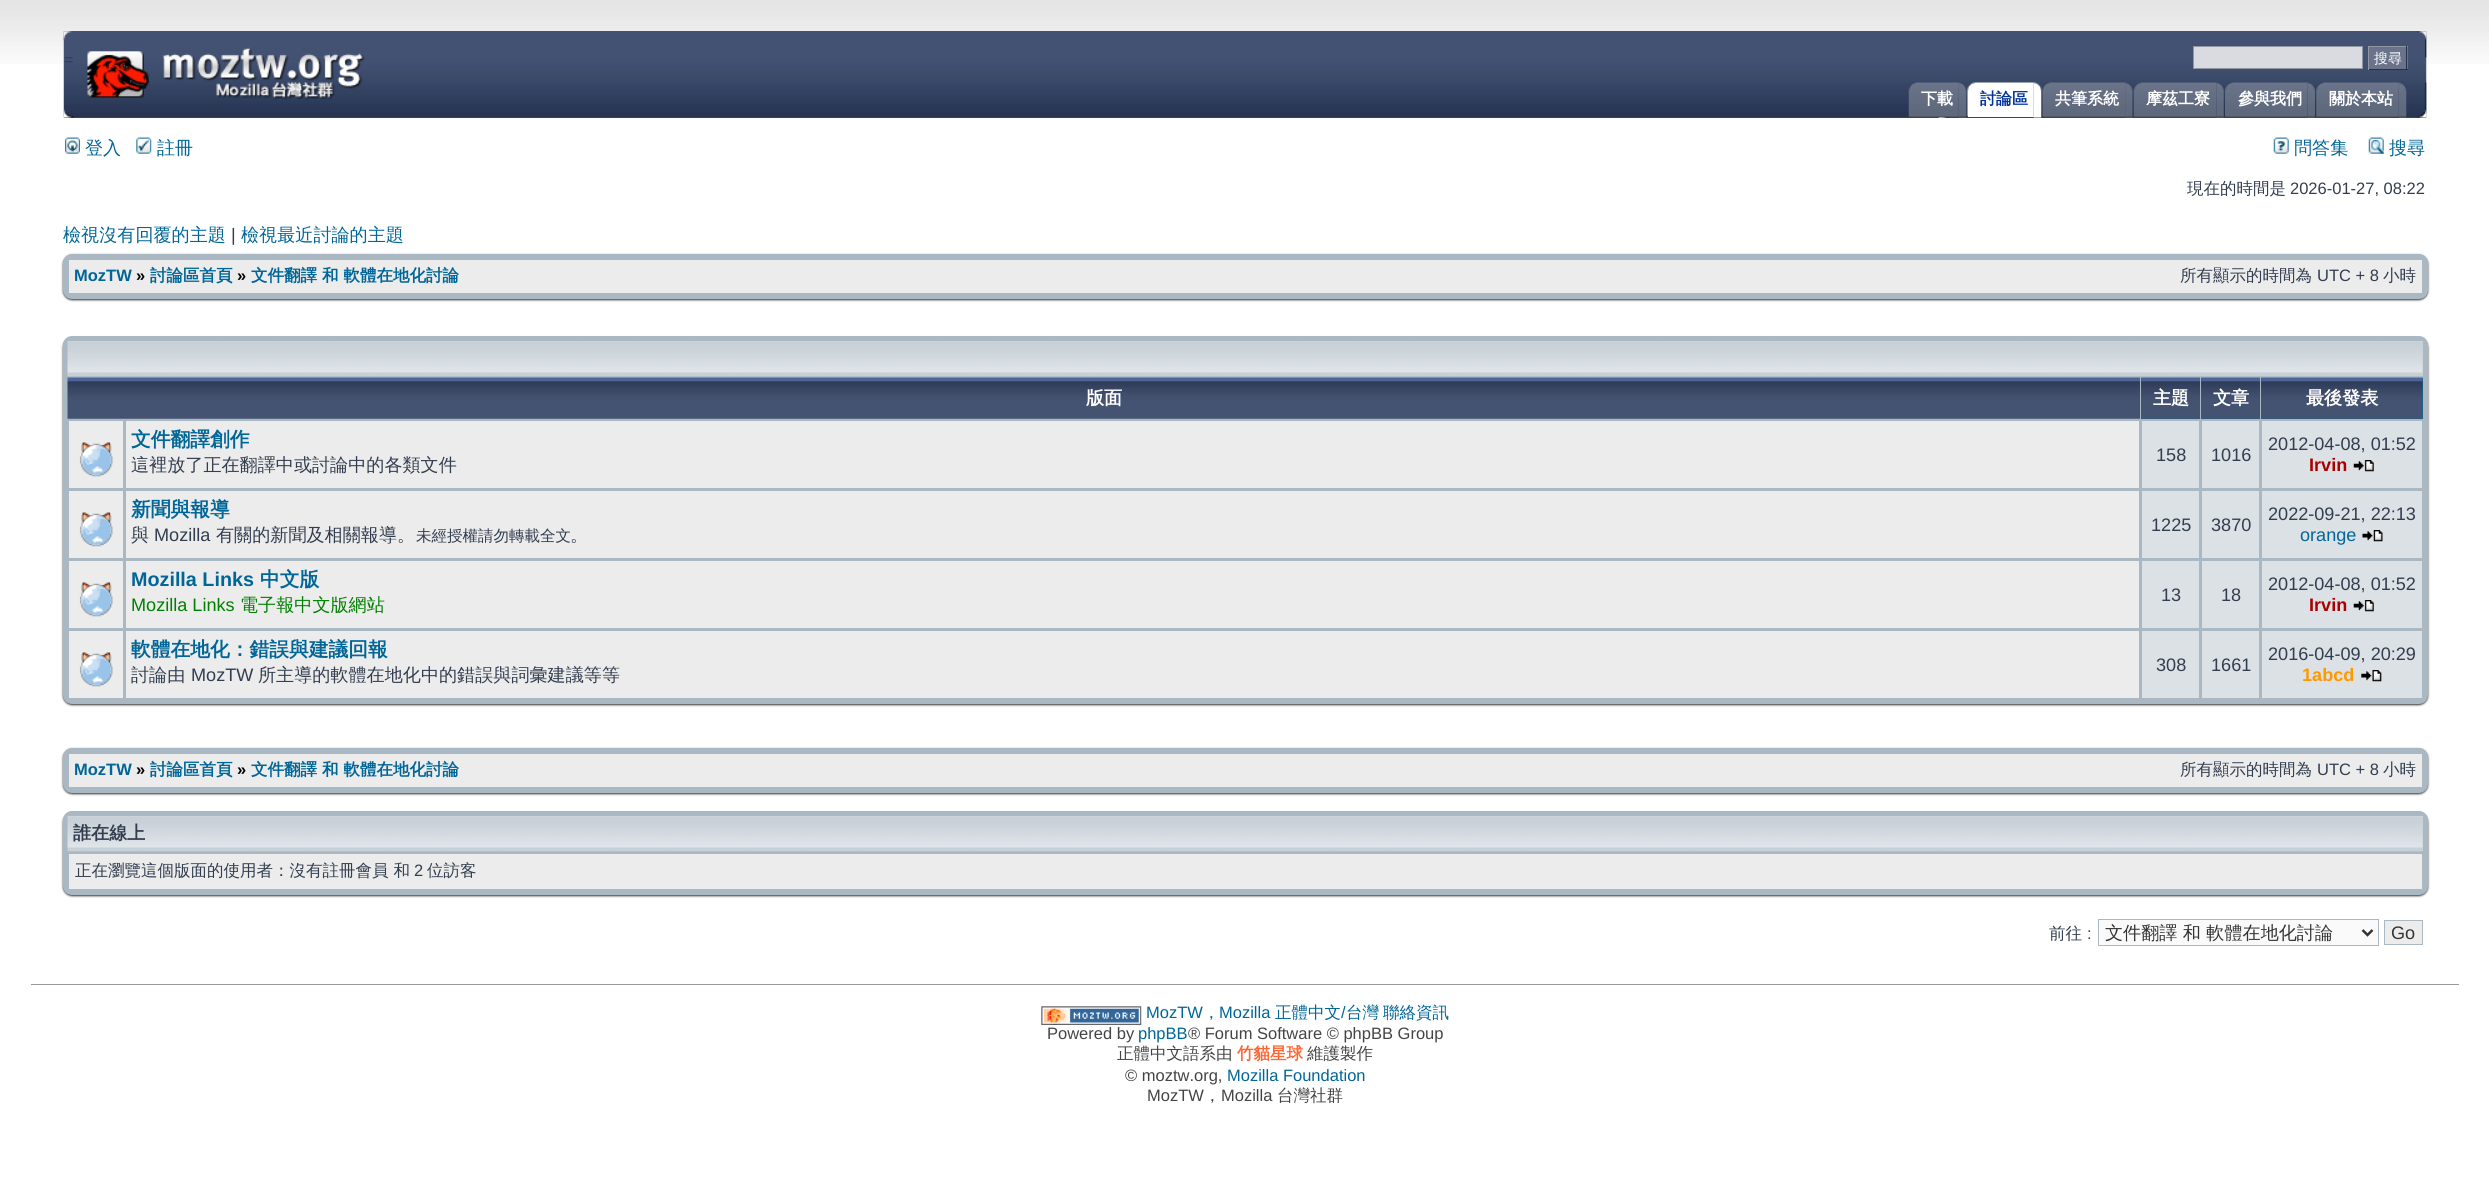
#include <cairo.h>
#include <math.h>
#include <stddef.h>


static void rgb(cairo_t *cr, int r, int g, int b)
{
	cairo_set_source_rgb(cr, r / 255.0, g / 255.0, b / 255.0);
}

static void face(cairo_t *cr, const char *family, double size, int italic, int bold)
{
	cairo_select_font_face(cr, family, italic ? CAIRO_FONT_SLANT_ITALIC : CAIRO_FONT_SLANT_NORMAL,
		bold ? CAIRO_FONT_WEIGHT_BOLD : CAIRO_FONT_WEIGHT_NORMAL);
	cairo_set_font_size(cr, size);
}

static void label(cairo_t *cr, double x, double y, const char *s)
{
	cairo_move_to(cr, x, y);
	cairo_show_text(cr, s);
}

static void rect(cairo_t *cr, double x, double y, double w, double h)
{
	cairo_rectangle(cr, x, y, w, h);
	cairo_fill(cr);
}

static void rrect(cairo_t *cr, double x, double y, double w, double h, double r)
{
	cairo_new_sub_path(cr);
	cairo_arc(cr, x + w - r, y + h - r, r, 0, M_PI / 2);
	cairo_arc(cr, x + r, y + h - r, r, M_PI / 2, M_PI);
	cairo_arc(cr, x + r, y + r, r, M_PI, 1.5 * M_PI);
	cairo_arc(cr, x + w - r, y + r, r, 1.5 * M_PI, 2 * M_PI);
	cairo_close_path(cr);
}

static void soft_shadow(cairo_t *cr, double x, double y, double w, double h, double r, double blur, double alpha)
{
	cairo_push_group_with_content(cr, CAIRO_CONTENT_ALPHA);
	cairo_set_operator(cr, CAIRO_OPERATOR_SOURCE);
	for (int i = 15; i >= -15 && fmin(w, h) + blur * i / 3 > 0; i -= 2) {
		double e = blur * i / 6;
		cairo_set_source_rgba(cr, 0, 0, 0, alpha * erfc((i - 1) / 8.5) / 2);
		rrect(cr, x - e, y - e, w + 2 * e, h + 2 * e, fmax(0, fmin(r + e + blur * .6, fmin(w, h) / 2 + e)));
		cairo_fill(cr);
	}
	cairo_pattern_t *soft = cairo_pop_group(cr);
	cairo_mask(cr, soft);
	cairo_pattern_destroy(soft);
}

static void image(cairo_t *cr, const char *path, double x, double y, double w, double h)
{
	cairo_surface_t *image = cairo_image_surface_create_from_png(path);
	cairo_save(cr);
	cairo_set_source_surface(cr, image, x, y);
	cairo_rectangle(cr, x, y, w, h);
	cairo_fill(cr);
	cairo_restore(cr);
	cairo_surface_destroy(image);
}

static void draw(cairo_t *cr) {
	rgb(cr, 255, 255, 255);
	cairo_paint(cr);
	image(cr, "image0.png", 0, 0, 2489, 64);
	rgb(cr, 69, 83, 114);
	rect(cr, 64, 31, 2362, 87);
	image(cr, "image1.png", 63, 31, 2364, 87);
	image(cr, "image2.png", 63, 31, 9, 9);
	image(cr, "image3.png", 87, 47, 278, 53);
	image(cr, "image4.png", 2417, 31, 10, 27);
	rgb(cr, 217, 219, 225);
	cairo_rectangle(cr, 2193.5, 46.5, 169, 22);
	cairo_fill_preserve(cr);
	rgb(cr, 144, 151, 162);
	cairo_set_line_width(cr, 1);
	cairo_stroke(cr);
	rgb(cr, 106, 115, 137);
	rect(cr, 2369, 47, 39, 22);
	rgb(cr, 144, 151, 162);
	rect(cr, 2368, 46, 40, 1);
	rgb(cr, 40, 48, 67);
	rect(cr, 2406, 46, 1, 24);
	rect(cr, 2368, 69, 40, 1);
	rgb(cr, 144, 151, 162);
	rect(cr, 2368, 46, 1, 24);
	face(cr, "WenQuanYi Zen Hei Medium", 14, 0, 0);
	rgb(cr, 255, 255, 255);
	label(cr, 2374, 63, "搜尋");
	face(cr, "Liberation Sans", 16, 0, 0);
	rgb(cr, 50, 61, 79);
	label(cr, 64, 65, "=");
	image(cr, "image5.png", 2417, 82, 10, 36);
	image(cr, "image6.png", 1958, 82, 9, 36);
	rgb(cr, 81, 83, 88);
	rect(cr, 1909, 116, 57, 1);
	image(cr, "image7.png", 1908, 82, 51, 35);
	face(cr, "WenQuanYi Zen Hei", 16, 0, 1);
	rgb(cr, 255, 255, 255);
	label(cr, 1921, 104, "下載");
	image(cr, "image8.png", 2033, 82, 9, 36);
	rect(cr, 1968, 116, 73, 1);
	image(cr, "image9.png", 1967, 82, 67, 35);
	rgb(cr, 0, 51, 153);
	label(cr, 1980, 104, "討論區");
	image(cr, "image10.png", 2125, 82, 8, 36);
	rgb(cr, 81, 83, 88);
	rect(cr, 2043, 116, 90, 1);
	image(cr, "image11.png", 2042, 82, 83, 35);
	rgb(cr, 255, 255, 255);
	label(cr, 2055, 104, "共筆系統");
	image(cr, "image12.png", 2216, 82, 8, 36);
	rgb(cr, 81, 83, 88);
	rect(cr, 2134, 116, 90, 1);
	image(cr, "image13.png", 2133, 82, 84, 35);
	rgb(cr, 255, 255, 255);
	label(cr, 2146, 104, "摩茲工寮");
	image(cr, "image14.png", 2307, 82, 8, 36);
	rgb(cr, 81, 83, 88);
	rect(cr, 2225, 116, 90, 1);
	image(cr, "image15.png", 2225, 82, 83, 35);
	rgb(cr, 255, 255, 255);
	label(cr, 2238, 104, "參與我們");
	image(cr, "image6.png", 2398, 82, 9, 36);
	rgb(cr, 81, 83, 88);
	rect(cr, 2316, 116, 90, 1);
	image(cr, "image16.png", 2316, 82, 83, 35);
	rgb(cr, 255, 255, 255);
	label(cr, 2329, 104, "關於本站");
	image(cr, "image17.png", 65, 137, 15, 17);
	face(cr, "WenQuanYi Zen Hei Medium", 18.1, 0, 0);
	rgb(cr, 0, 101, 151);
	label(cr, 85, 154, "登入");
	image(cr, "image18.png", 136, 137, 16, 17);
	label(cr, 157, 154, "註冊");
	image(cr, "image19.png", 2273, 137, 16, 17);
	label(cr, 2294, 154, "問答集");
	image(cr, "image20.png", 2368, 137, 16, 17);
	label(cr, 2389, 154, "搜尋");
	face(cr, "WenQuanYi Zen Hei Medium", 16.5, 0, 0);
	rgb(cr, 50, 61, 79);
	label(cr, 2187, 194, "現在的時間是");
	face(cr, "Liberation Sans", 16.5, 0, 0);
	label(cr, 2290, 194, "2026-01-27, 08:22");
	face(cr, "WenQuanYi Zen Hei Medium", 18.1, 0, 0);
	rgb(cr, 0, 101, 151);
	label(cr, 63, 241, "檢視沒有回覆的主題");
	face(cr, "Liberation Sans", 18.1, 0, 0);
	rgb(cr, 50, 61, 79);
	label(cr, 231, 241, "|");
	face(cr, "WenQuanYi Zen Hei Medium", 18.1, 0, 0);
	rgb(cr, 0, 101, 151);
	label(cr, 241, 241, "檢視最近討論的主題");
	rgb(cr, 51, 51, 51);
	soft_shadow(cr, 63, 255, 2365, 45, 9, 1, 1);
	rgb(cr, 169, 184, 194);
	rrect(cr, 63, 254, 2365, 45, 9);
	cairo_fill(cr);
	rgb(cr, 236, 236, 236);
	rect(cr, 69, 260, 2353, 33);
	face(cr, "Liberation Sans", 16.5, 0, 1);
	rgb(cr, 0, 101, 151);
	label(cr, 74, 281, "MozTW");
	rgb(cr, 0, 0, 0);
	label(cr, 136, 281, "»");
	face(cr, "WenQuanYi Zen Hei", 16.5, 0, 1);
	rgb(cr, 0, 101, 151);
	label(cr, 150, 281, "討論區首頁");
	face(cr, "Liberation Sans", 16.5, 0, 1);
	rgb(cr, 0, 0, 0);
	label(cr, 237, 281, "»");
	face(cr, "WenQuanYi Zen Hei", 16.5, 0, 1);
	rgb(cr, 0, 101, 151);
	label(cr, 251, 281, "文件翻譯 和 軟體在地化討論");
	face(cr, "WenQuanYi Zen Hei Medium", 16.5, 0, 0);
	rgb(cr, 50, 61, 79);
	label(cr, 2180, 281, "所有顯示的時間為");
	face(cr, "Liberation Sans", 16.5, 0, 0);
	label(cr, 2317, 281, "UTC + 8");
	face(cr, "WenQuanYi Zen Hei Medium", 16.5, 0, 0);
	label(cr, 2383, 281, "小時");
	rgb(cr, 51, 51, 51);
	soft_shadow(cr, 63, 338, 2365, 367, 9, 1, 1);
	rgb(cr, 169, 184, 194);
	rrect(cr, 63, 336, 2365, 368, 9);
	cairo_fill(cr);
	rgb(cr, 199, 208, 215);
	rect(cr, 68, 341, 2355, 35);
	image(cr, "image21.png", 67, 341, 2356, 36);
	image(cr, "image22.png", 67, 377, 2073, 42);
	face(cr, "WenQuanYi Zen Hei", 18.1, 0, 1);
	rgb(cr, 255, 255, 255);
	label(cr, 1086, 404, "版面");
	rgb(cr, 0, 102, 153);
	rect(cr, 2141, 378, 59, 41);
	image(cr, "image23.png", 2141, 377, 59, 42);
	rgb(cr, 255, 255, 255);
	label(cr, 2153, 404, "主題");
	rgb(cr, 0, 102, 153);
	rect(cr, 2201, 378, 59, 41);
	image(cr, "image24.png", 2201, 377, 59, 42);
	rgb(cr, 255, 255, 255);
	label(cr, 2213, 404, "文章");
	rgb(cr, 0, 102, 153);
	rect(cr, 2261, 378, 162, 41);
	image(cr, "image25.png", 2261, 377, 162, 42);
	rgb(cr, 255, 255, 255);
	label(cr, 2306, 404, "最後發表");
	rgb(cr, 236, 236, 236);
	rect(cr, 69, 421, 54, 67);
	image(cr, "image26.png", 79, 442, 34, 35);
	rect(cr, 126, 421, 2013, 67);
	face(cr, "WenQuanYi Zen Hei", 19.75, 0, 1);
	rgb(cr, 0, 101, 151);
	label(cr, 131, 446, "文件翻譯創作");
	face(cr, "WenQuanYi Zen Hei Medium", 18.1, 0, 0);
	rgb(cr, 50, 61, 79);
	label(cr, 131, 471, "這裡放了正在翻譯中或討論中的各類文件");
	rgb(cr, 220, 225, 229);
	rect(cr, 2142, 421, 57, 67);
	face(cr, "Liberation Sans", 18.1, 0, 0);
	rgb(cr, 50, 61, 79);
	label(cr, 2156, 461, "158");
	rgb(cr, 220, 225, 229);
	rect(cr, 2202, 421, 57, 67);
	rgb(cr, 50, 61, 79);
	label(cr, 2211, 461, "1016");
	rgb(cr, 220, 225, 229);
	rect(cr, 2262, 421, 160, 67);
	rgb(cr, 50, 61, 79);
	label(cr, 2268, 450, "2012-04-08, 01:52");
	face(cr, "Liberation Sans", 18.1, 0, 1);
	rgb(cr, 170, 0, 0);
	label(cr, 2309, 471, "Irvin");
	image(cr, "image27.png", 2353, 460, 21, 12);
	rgb(cr, 236, 236, 236);
	rect(cr, 69, 491, 54, 67);
	image(cr, "image26.png", 79, 512, 34, 35);
	rect(cr, 126, 491, 2013, 67);
	face(cr, "WenQuanYi Zen Hei", 19.75, 0, 1);
	rgb(cr, 0, 101, 151);
	label(cr, 131, 516, "新聞與報導");
	face(cr, "WenQuanYi Zen Hei Medium", 18.1, 0, 0);
	rgb(cr, 50, 61, 79);
	label(cr, 131, 541, "與");
	face(cr, "Liberation Sans", 18.1, 0, 0);
	label(cr, 154, 541, "Mozilla");
	face(cr, "WenQuanYi Zen Hei Medium", 18.1, 0, 0);
	label(cr, 216, 541, "有關的新聞及相關報導。");
	face(cr, "WenQuanYi Zen Hei Medium", 15.5, 0, 0);
	label(cr, 416, 541, "未經授權請勿轉載全文");
	face(cr, "WenQuanYi Zen Hei Medium", 18.1, 0, 0);
	label(cr, 570, 541, "。");
	rgb(cr, 220, 225, 229);
	rect(cr, 2142, 491, 57, 67);
	face(cr, "Liberation Sans", 18.1, 0, 0);
	rgb(cr, 50, 61, 79);
	label(cr, 2151, 531, "1225");
	rgb(cr, 220, 225, 229);
	rect(cr, 2202, 491, 57, 67);
	rgb(cr, 50, 61, 79);
	label(cr, 2211, 531, "3870");
	rgb(cr, 220, 225, 229);
	rect(cr, 2262, 491, 160, 67);
	rgb(cr, 50, 61, 79);
	label(cr, 2268, 520, "2022-09-21, 22:13");
	rgb(cr, 0, 101, 151);
	label(cr, 2300, 541, "orange");
	image(cr, "image28.png", 2362, 530, 21, 12);
	rgb(cr, 236, 236, 236);
	rect(cr, 69, 561, 54, 67);
	image(cr, "image29.png", 79, 582, 34, 35);
	rect(cr, 126, 561, 2013, 67);
	face(cr, "Liberation Sans", 19.75, 0, 1);
	rgb(cr, 0, 101, 151);
	label(cr, 131, 586, "Mozilla Links");
	face(cr, "WenQuanYi Zen Hei", 19.75, 0, 1);
	label(cr, 260, 586, "中文版");
	face(cr, "Liberation Sans", 18.1, 0, 0);
	rgb(cr, 0, 128, 0);
	label(cr, 131, 611, "Mozilla Links");
	face(cr, "WenQuanYi Zen Hei Medium", 18.1, 0, 0);
	label(cr, 240, 611, "電子報中文版網站");
	rgb(cr, 220, 225, 229);
	rect(cr, 2142, 561, 57, 67);
	face(cr, "Liberation Sans", 18.1, 0, 0);
	rgb(cr, 50, 61, 79);
	label(cr, 2161, 601, "13");
	rgb(cr, 220, 225, 229);
	rect(cr, 2202, 561, 57, 67);
	rgb(cr, 50, 61, 79);
	label(cr, 2221, 601, "18");
	rgb(cr, 220, 225, 229);
	rect(cr, 2262, 561, 160, 67);
	rgb(cr, 50, 61, 79);
	label(cr, 2268, 590, "2012-04-08, 01:52");
	face(cr, "Liberation Sans", 18.1, 0, 1);
	rgb(cr, 170, 0, 0);
	label(cr, 2309, 611, "Irvin");
	image(cr, "image27.png", 2353, 600, 21, 12);
	rgb(cr, 236, 236, 236);
	rect(cr, 69, 631, 54, 67);
	image(cr, "image26.png", 79, 652, 34, 35);
	rect(cr, 126, 631, 2013, 67);
	face(cr, "WenQuanYi Zen Hei", 19.75, 0, 1);
	rgb(cr, 0, 101, 151);
	label(cr, 131, 656, "軟體在地化：錯誤與建議回報");
	face(cr, "WenQuanYi Zen Hei Medium", 18.1, 0, 0);
	rgb(cr, 50, 61, 79);
	label(cr, 131, 681, "討論由");
	face(cr, "Liberation Sans", 18.1, 0, 0);
	label(cr, 191, 681, "MozTW");
	face(cr, "WenQuanYi Zen Hei Medium", 18.1, 0, 0);
	label(cr, 258, 681, "所主導的軟體在地化中的錯誤與詞彙建議等等");
	rgb(cr, 220, 225, 229);
	rect(cr, 2142, 631, 57, 67);
	face(cr, "Liberation Sans", 18.1, 0, 0);
	rgb(cr, 50, 61, 79);
	label(cr, 2156, 671, "308");
	rgb(cr, 220, 225, 229);
	rect(cr, 2202, 631, 57, 67);
	rgb(cr, 50, 61, 79);
	label(cr, 2211, 671, "1661");
	rgb(cr, 220, 225, 229);
	rect(cr, 2262, 631, 160, 67);
	rgb(cr, 50, 61, 79);
	label(cr, 2268, 660, "2016-04-09, 20:29");
	face(cr, "Liberation Sans", 18.1, 0, 1);
	rgb(cr, 255, 153, 0);
	label(cr, 2302, 681, "1abcd");
	image(cr, "image30.png", 2361, 670, 21, 12);
	rgb(cr, 51, 51, 51);
	soft_shadow(cr, 63, 749, 2365, 45, 9, 1, 1);
	rgb(cr, 169, 184, 194);
	rrect(cr, 63, 748, 2365, 45, 9);
	cairo_fill(cr);
	rgb(cr, 236, 236, 236);
	rect(cr, 69, 754, 2353, 33);
	face(cr, "Liberation Sans", 16.5, 0, 1);
	rgb(cr, 0, 101, 151);
	label(cr, 74, 775, "MozTW");
	rgb(cr, 0, 0, 0);
	label(cr, 136, 775, "»");
	face(cr, "WenQuanYi Zen Hei", 16.5, 0, 1);
	rgb(cr, 0, 101, 151);
	label(cr, 150, 775, "討論區首頁");
	face(cr, "Liberation Sans", 16.5, 0, 1);
	rgb(cr, 0, 0, 0);
	label(cr, 237, 775, "»");
	face(cr, "WenQuanYi Zen Hei", 16.5, 0, 1);
	rgb(cr, 0, 101, 151);
	label(cr, 251, 775, "文件翻譯 和 軟體在地化討論");
	face(cr, "WenQuanYi Zen Hei Medium", 16.5, 0, 0);
	rgb(cr, 50, 61, 79);
	label(cr, 2180, 775, "所有顯示的時間為");
	face(cr, "Liberation Sans", 16.5, 0, 0);
	label(cr, 2317, 775, "UTC + 8");
	face(cr, "WenQuanYi Zen Hei Medium", 16.5, 0, 0);
	label(cr, 2383, 775, "小時");
	rgb(cr, 51, 51, 51);
	soft_shadow(cr, 63, 813, 2365, 83, 9, 1, 1);
	rgb(cr, 169, 184, 194);
	rrect(cr, 63, 811, 2365, 84, 9);
	cairo_fill(cr);
	rgb(cr, 199, 208, 215);
	rect(cr, 68, 816, 2355, 35);
	image(cr, "image21.png", 67, 816, 2356, 36);
	face(cr, "WenQuanYi Zen Hei", 18.1, 0, 1);
	rgb(cr, 50, 61, 79);
	label(cr, 73, 839, "誰在線上");
	rgb(cr, 236, 236, 236);
	rect(cr, 69, 854, 2353, 35);
	face(cr, "WenQuanYi Zen Hei Medium", 16.5, 0, 0);
	rgb(cr, 50, 61, 79);
	label(cr, 75, 876, "正在瀏覽這個版面的使用者：沒有註冊會員 和");
	face(cr, "Liberation Sans", 16.5, 0, 0);
	label(cr, 414, 876, "2");
	face(cr, "WenQuanYi Zen Hei Medium", 16.5, 0, 0);
	label(cr, 427, 876, "位訪客");
	label(cr, 2049, 939, "前往");
	face(cr, "Liberation Sans", 16.5, 0, 0);
	label(cr, 2087, 939, ":");
	rgb(cr, 250, 250, 250);
	cairo_rectangle(cr, 2098.5, 919.5, 280, 26);
	cairo_fill_preserve(cr);
	rgb(cr, 169, 184, 194);
	cairo_stroke(cr);
	cairo_new_path(cr);
	cairo_move_to(cr, 2362.5, 930);
	cairo_line_to(cr, 2367.5, 935);
	cairo_line_to(cr, 2372.5, 930);
	rgb(cr, 51, 51, 51);
	cairo_set_line_width(cr, 2.5);
	cairo_stroke(cr);
	face(cr, "WenQuanYi Zen Hei Medium", 18.1, 0, 0);
	label(cr, 2105, 939, "文件翻譯 和 軟體在地化討論");
	rgb(cr, 236, 236, 236);
	cairo_rectangle(cr, 2384.5, 920.5, 38, 24);
	cairo_fill_preserve(cr);
	rgb(cr, 169, 184, 194);
	cairo_set_line_width(cr, 1);
	cairo_stroke(cr);
	face(cr, "Liberation Sans", 18.1, 0, 0);
	rgb(cr, 51, 51, 51);
	label(cr, 2391, 939, "Go");
	rgb(cr, 153, 153, 153);
	rect(cr, 31, 984, 2428, 1);
	image(cr, "image31.png", 1041, 1006, 101, 19);
	face(cr, "Liberation Sans", 16.5, 0, 0);
	rgb(cr, 0, 101, 151);
	label(cr, 1146, 1018, "MozTW");
	face(cr, "WenQuanYi Zen Hei Medium", 16.5, 0, 0);
	label(cr, 1203, 1018, "，");
	face(cr, "Liberation Sans", 16.5, 0, 0);
	label(cr, 1219, 1018, "Mozilla");
	face(cr, "WenQuanYi Zen Hei Medium", 16.5, 0, 0);
	label(cr, 1275, 1018, "正體中文");
	face(cr, "Liberation Sans", 16.5, 0, 0);
	label(cr, 1341, 1018, "/");
	face(cr, "WenQuanYi Zen Hei Medium", 16.5, 0, 0);
	label(cr, 1346, 1018, "台灣");
	label(cr, 1383, 1018, "聯絡資訊");
	face(cr, "Liberation Sans", 16.5, 0, 0);
	rgb(cr, 68, 68, 68);
	label(cr, 1047, 1039, "Powered by");
	rgb(cr, 0, 101, 151);
	label(cr, 1138, 1039, "phpBB");
	rgb(cr, 68, 68, 68);
	label(cr, 1188, 1039, "® Forum Software © phpBB Group");
	face(cr, "WenQuanYi Zen Hei Medium", 16.5, 0, 0);
	label(cr, 1117, 1059, "正體中文語系由");
	face(cr, "WenQuanYi Zen Hei", 16.5, 0, 1);
	rgb(cr, 255, 102, 51);
	label(cr, 1237, 1059, "竹貓星球");
	face(cr, "WenQuanYi Zen Hei Medium", 16.5, 0, 0);
	rgb(cr, 68, 68, 68);
	label(cr, 1307, 1059, "維護製作");
	face(cr, "Liberation Sans", 16.5, 0, 0);
	label(cr, 1125, 1081, "© moztw.org,");
	rgb(cr, 0, 101, 151);
	label(cr, 1227, 1081, "Mozilla Foundation");
	rgb(cr, 68, 68, 68);
	label(cr, 1147, 1101, "MozTW");
	face(cr, "WenQuanYi Zen Hei Medium", 16.5, 0, 0);
	label(cr, 1204, 1101, "，");
	face(cr, "Liberation Sans", 16.5, 0, 0);
	label(cr, 1221, 1101, "Mozilla");
	face(cr, "WenQuanYi Zen Hei Medium", 16.5, 0, 0);
	label(cr, 1277, 1101, "台灣社群");
}

int main(void) {
	cairo_surface_t *surface = cairo_image_surface_create(CAIRO_FORMAT_RGB24, 2489, 1199);
	cairo_t *cr = cairo_create(surface);
	cairo_font_options_t *options = cairo_font_options_create();
	cairo_font_options_set_hint_metrics(options, CAIRO_HINT_METRICS_OFF);
	cairo_font_options_set_hint_style(options, CAIRO_HINT_STYLE_NONE);
	cairo_set_font_options(cr, options);
	cairo_set_miter_limit(cr, 4);
	draw(cr);
	cairo_surface_write_to_png(surface, "render.png");
	cairo_font_options_destroy(options);
	cairo_destroy(cr);
	cairo_surface_destroy(surface);
	return 0;
}
